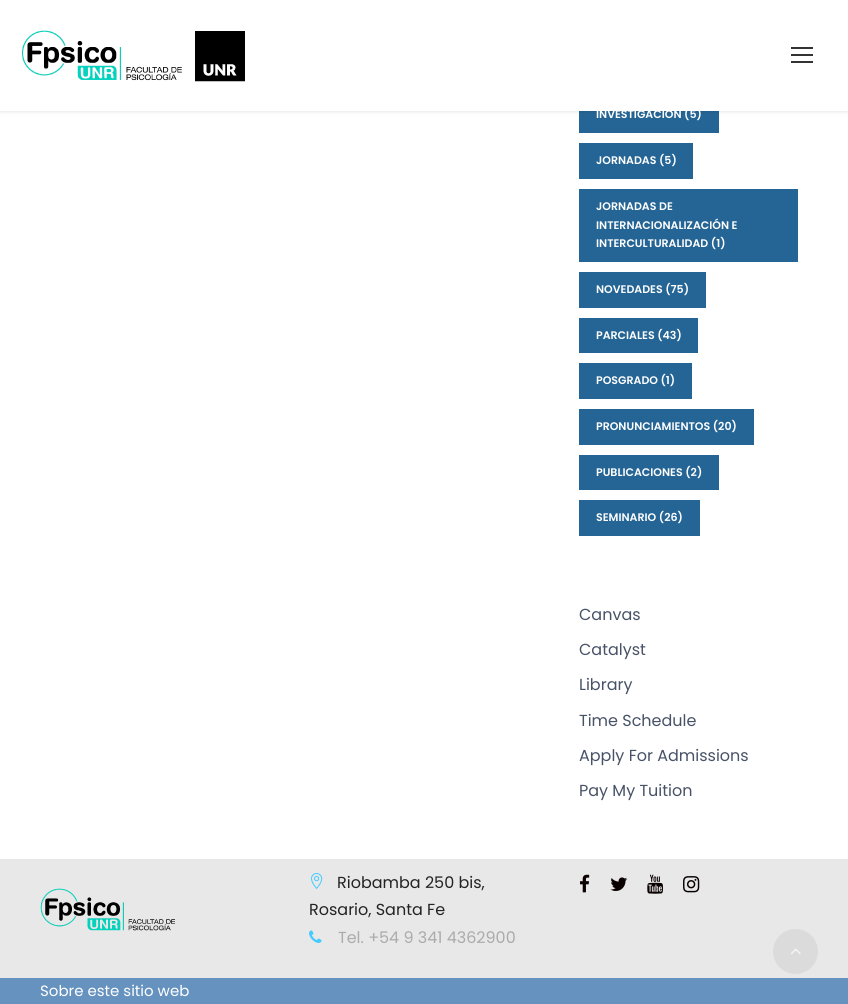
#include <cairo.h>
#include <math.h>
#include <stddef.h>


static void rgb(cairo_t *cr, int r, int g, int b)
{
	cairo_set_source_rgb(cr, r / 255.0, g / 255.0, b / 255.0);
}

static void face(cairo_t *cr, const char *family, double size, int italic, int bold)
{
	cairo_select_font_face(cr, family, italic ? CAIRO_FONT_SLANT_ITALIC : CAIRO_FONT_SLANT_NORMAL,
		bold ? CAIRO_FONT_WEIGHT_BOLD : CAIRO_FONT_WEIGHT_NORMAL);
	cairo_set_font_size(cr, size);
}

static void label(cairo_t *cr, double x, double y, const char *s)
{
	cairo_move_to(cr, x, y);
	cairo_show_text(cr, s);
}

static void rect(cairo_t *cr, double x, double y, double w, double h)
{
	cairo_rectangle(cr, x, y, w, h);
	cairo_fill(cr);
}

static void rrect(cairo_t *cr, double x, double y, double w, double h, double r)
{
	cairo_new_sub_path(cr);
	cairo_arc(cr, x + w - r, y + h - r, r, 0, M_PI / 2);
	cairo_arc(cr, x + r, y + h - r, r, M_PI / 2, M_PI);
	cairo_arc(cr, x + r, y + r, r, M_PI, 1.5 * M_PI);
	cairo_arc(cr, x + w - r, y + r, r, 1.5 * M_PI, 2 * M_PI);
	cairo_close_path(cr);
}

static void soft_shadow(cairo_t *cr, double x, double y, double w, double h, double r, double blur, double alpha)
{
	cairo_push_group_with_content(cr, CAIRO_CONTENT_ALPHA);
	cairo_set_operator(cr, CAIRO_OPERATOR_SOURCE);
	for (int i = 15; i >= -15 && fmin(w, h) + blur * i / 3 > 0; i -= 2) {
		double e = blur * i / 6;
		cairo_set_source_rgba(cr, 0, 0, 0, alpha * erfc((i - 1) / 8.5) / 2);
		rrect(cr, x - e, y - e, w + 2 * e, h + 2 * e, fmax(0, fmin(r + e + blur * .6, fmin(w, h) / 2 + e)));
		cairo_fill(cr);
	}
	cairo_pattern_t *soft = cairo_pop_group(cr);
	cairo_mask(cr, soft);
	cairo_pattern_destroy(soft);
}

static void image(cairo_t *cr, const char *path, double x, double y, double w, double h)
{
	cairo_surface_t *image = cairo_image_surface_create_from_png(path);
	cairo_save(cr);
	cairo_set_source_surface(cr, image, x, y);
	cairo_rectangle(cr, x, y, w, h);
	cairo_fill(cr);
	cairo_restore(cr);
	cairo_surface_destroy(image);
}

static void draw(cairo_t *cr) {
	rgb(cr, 255, 255, 255);
	cairo_paint(cr);
	rgb(cr, 37, 101, 149);
	rect(cr, 579, 111, 140, 22);
	rgb(cr, 0, 0, 0);
	soft_shadow(cr, 0, 1, 848, 111, 0, 2, 0.1);
	rgb(cr, 255, 255, 255);
	rect(cr, 0, 0, 848, 111);
	image(cr, "image0.png", 22, 30, 223, 52);
	rgb(cr, 51, 51, 51);
	rect(cr, 791, 47, 22, 2);
	rect(cr, 791, 54, 22, 2);
	rect(cr, 791, 61, 22, 2);
	face(cr, "Poppins SemiBold", 11, 0, 0);
	rgb(cr, 255, 255, 255);
	label(cr, 596, 118, "INVESTIGACIÓN (5)");
	rgb(cr, 37, 101, 149);
	rect(cr, 579, 143, 114, 36);
	rgb(cr, 255, 255, 255);
	label(cr, 596, 164, "JORNADAS (5)");
	rgb(cr, 37, 101, 149);
	rect(cr, 579, 189, 219, 73);
	rgb(cr, 255, 255, 255);
	label(cr, 596, 210, "JORNADAS DE");
	label(cr, 596, 229, "INTERNACIONALIZACIÓN E");
	label(cr, 596, 247, "INTERCULTURALIDAD (1)");
	rgb(cr, 37, 101, 149);
	rect(cr, 579, 272, 127, 36);
	rgb(cr, 255, 255, 255);
	label(cr, 596, 293, "NOVEDADES (75)");
	rgb(cr, 37, 101, 149);
	rect(cr, 579, 318, 119, 35);
	rgb(cr, 255, 255, 255);
	label(cr, 596, 339, "PARCIALES (43)");
	rgb(cr, 37, 101, 149);
	rect(cr, 579, 363, 113, 36);
	rgb(cr, 255, 255, 255);
	label(cr, 596, 384, "POSGRADO (1)");
	rgb(cr, 37, 101, 149);
	rect(cr, 579, 409, 175, 36);
	rgb(cr, 255, 255, 255);
	label(cr, 596, 430, "PRONUNCIAMIENTOS (20)");
	rgb(cr, 37, 101, 149);
	rect(cr, 579, 455, 140, 35);
	rgb(cr, 255, 255, 255);
	label(cr, 596, 476, "PUBLICACIONES (2)");
	rgb(cr, 37, 101, 149);
	rect(cr, 579, 500, 121, 36);
	rgb(cr, 255, 255, 255);
	label(cr, 596, 521, "SEMINARIO (26)");
	face(cr, "Poppins", 16, 0, 0);
	rgb(cr, 71, 82, 103);
	label(cr, 579, 620, "Canvas");
	label(cr, 579, 655, "Catalyst");
	label(cr, 579, 690, "Library");
	label(cr, 579, 726, "Time Schedule");
	label(cr, 579, 761, "Apply For Admissions");
	label(cr, 579, 796, "Pay My Tuition");
	rgb(cr, 232, 232, 232);
	rect(cr, 0, 859, 848, 119);
	image(cr, "image1.png", 40, 888, 135, 43);
	image(cr, "image2.png", 311, 873, 12, 16);
	rgb(cr, 35, 35, 35);
	label(cr, 337, 888, "Riobamba 250 bis,");
	label(cr, 309, 915, "Rosario, Santa Fe");
	image(cr, "image3.png", 309, 930, 13, 13);
	rgb(cr, 171, 171, 171);
	label(cr, 338, 943, "Tel. +54 9 341 4362900");
	image(cr, "image4.png", 580, 874, 10, 19);
	image(cr, "image5.png", 610, 877, 17, 14);
	image(cr, "image6.png", 647, 874, 16, 20);
	image(cr, "image7.png", 683, 876, 17, 17);
	rgb(cr, 101, 146, 191);
	rect(cr, 0, 978, 848, 26);
	face(cr, "Poppins", 15, 0, 0);
	rgb(cr, 255, 255, 255);
	label(cr, 40, 996, "Sobre este sitio web");
	rgb(cr, 219, 219, 219);
	cairo_new_path(cr);
	cairo_arc(cr, 795.5, 951.5, 22.5, 0, 2 * M_PI);
	cairo_fill(cr);
	image(cr, "image8.png", 791, 948, 10, 7);
}

int main(void) {
	cairo_surface_t *surface = cairo_image_surface_create(CAIRO_FORMAT_RGB24, 848, 1004);
	cairo_t *cr = cairo_create(surface);
	cairo_font_options_t *options = cairo_font_options_create();
	cairo_font_options_set_hint_metrics(options, CAIRO_HINT_METRICS_OFF);
	cairo_font_options_set_hint_style(options, CAIRO_HINT_STYLE_NONE);
	cairo_set_font_options(cr, options);
	cairo_set_miter_limit(cr, 4);
	draw(cr);
	cairo_surface_write_to_png(surface, "render.png");
	cairo_font_options_destroy(options);
	cairo_destroy(cr);
	cairo_surface_destroy(surface);
	return 0;
}
